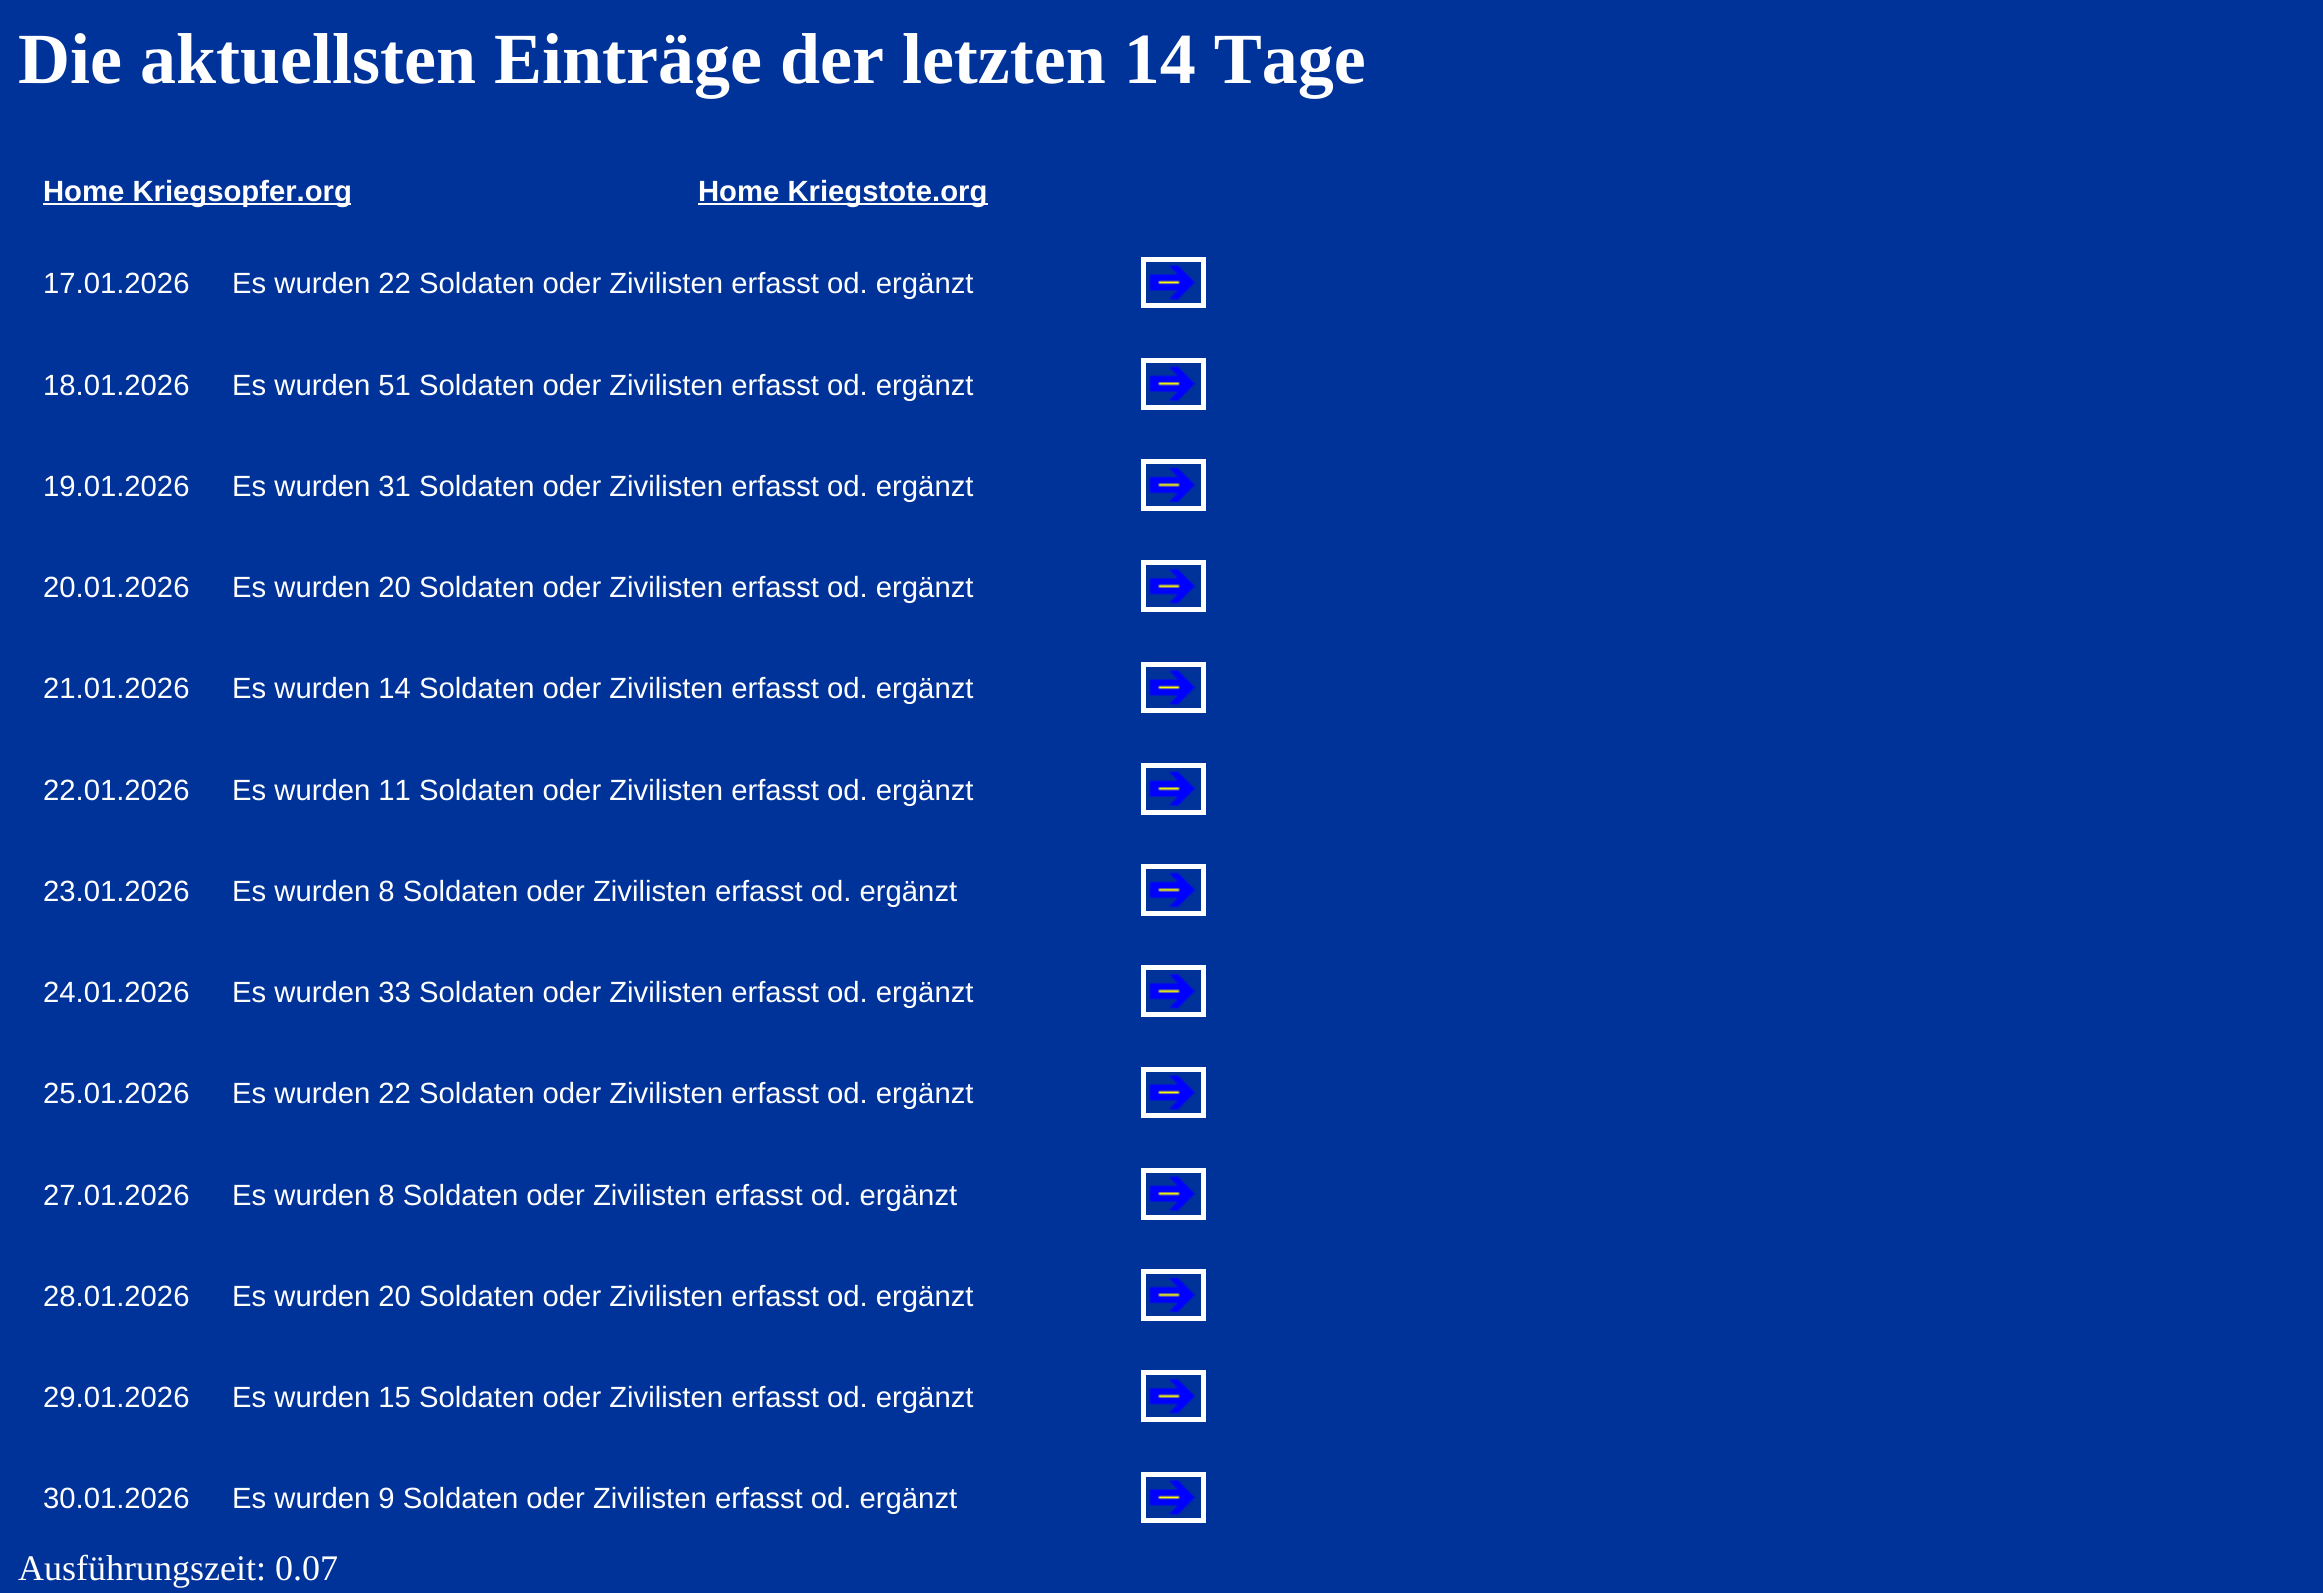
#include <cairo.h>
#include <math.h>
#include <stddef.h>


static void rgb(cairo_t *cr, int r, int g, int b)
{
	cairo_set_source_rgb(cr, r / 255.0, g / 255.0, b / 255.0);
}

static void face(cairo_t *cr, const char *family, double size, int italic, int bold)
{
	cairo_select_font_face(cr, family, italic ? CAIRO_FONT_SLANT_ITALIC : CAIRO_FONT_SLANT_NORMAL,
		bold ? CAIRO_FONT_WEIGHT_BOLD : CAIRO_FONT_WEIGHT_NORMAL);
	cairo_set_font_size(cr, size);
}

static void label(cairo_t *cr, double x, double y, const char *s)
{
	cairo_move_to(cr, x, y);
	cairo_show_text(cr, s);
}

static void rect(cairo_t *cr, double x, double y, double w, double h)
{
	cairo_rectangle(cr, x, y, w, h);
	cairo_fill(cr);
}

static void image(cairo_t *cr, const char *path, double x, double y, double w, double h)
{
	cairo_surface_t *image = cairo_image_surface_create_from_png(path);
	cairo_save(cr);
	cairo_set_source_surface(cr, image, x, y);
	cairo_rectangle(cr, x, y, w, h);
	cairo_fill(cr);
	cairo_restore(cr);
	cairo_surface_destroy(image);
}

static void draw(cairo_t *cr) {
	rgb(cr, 0, 51, 153);
	cairo_paint(cr);
	face(cr, "Liberation Serif", 72, 0, 1);
	rgb(cr, 255, 255, 255);
	label(cr, 18, 83, "Die aktuellsten Einträge der letzten 14 Tage");
	rect(cr, 43, 203, 308, 2);
	face(cr, "Liberation Sans", 29.25, 0, 1);
	label(cr, 43, 201, "Home Kriegsopfer.org");
	rect(cr, 698, 203, 290, 2);
	label(cr, 698, 201, "Home Kriegstote.org");
	face(cr, "Liberation Sans", 29.25, 0, 0);
	label(cr, 43, 293, "17.01.2026");
	label(cr, 232, 293, "Es wurden 22 Soldaten oder Zivilisten erfasst od. ergänzt");
	cairo_rectangle(cr, 1143.5, 259.5, 60, 46);
	cairo_set_line_width(cr, 5);
	cairo_stroke(cr);
	image(cr, "image0.png", 1149, 265, 47, 35);
	label(cr, 43, 395, "18.01.2026");
	label(cr, 232, 395, "Es wurden 51 Soldaten oder Zivilisten erfasst od. ergänzt");
	cairo_rectangle(cr, 1143.5, 360.5, 60, 47);
	cairo_stroke(cr);
	image(cr, "image1.png", 1149, 366, 47, 36);
	label(cr, 43, 496, "19.01.2026");
	label(cr, 232, 496, "Es wurden 31 Soldaten oder Zivilisten erfasst od. ergänzt");
	cairo_rectangle(cr, 1143.5, 461.5, 60, 47);
	cairo_stroke(cr);
	image(cr, "image2.png", 1149, 467, 47, 36);
	label(cr, 43, 597, "20.01.2026");
	label(cr, 232, 597, "Es wurden 20 Soldaten oder Zivilisten erfasst od. ergänzt");
	cairo_rectangle(cr, 1143.5, 562.5, 60, 47);
	cairo_stroke(cr);
	image(cr, "image3.png", 1149, 568, 47, 36);
	label(cr, 43, 698, "21.01.2026");
	label(cr, 232, 698, "Es wurden 14 Soldaten oder Zivilisten erfasst od. ergänzt");
	cairo_rectangle(cr, 1143.5, 664.5, 60, 46);
	cairo_stroke(cr);
	image(cr, "image0.png", 1149, 670, 47, 35);
	label(cr, 43, 800, "22.01.2026");
	label(cr, 232, 800, "Es wurden 11 Soldaten oder Zivilisten erfasst od. ergänzt");
	cairo_rectangle(cr, 1143.5, 765.5, 60, 47);
	cairo_stroke(cr);
	image(cr, "image1.png", 1149, 771, 47, 36);
	label(cr, 43, 901, "23.01.2026");
	label(cr, 232, 901, "Es wurden 8 Soldaten oder Zivilisten erfasst od. ergänzt");
	cairo_rectangle(cr, 1143.5, 866.5, 60, 47);
	cairo_stroke(cr);
	image(cr, "image2.png", 1149, 872, 47, 36);
	label(cr, 43, 1002, "24.01.2026");
	label(cr, 232, 1002, "Es wurden 33 Soldaten oder Zivilisten erfasst od. ergänzt");
	cairo_rectangle(cr, 1143.5, 967.5, 60, 47);
	cairo_stroke(cr);
	image(cr, "image4.png", 1149, 973, 47, 36);
	label(cr, 43, 1103, "25.01.2026");
	label(cr, 232, 1103, "Es wurden 22 Soldaten oder Zivilisten erfasst od. ergänzt");
	cairo_rectangle(cr, 1143.5, 1069.5, 60, 46);
	cairo_stroke(cr);
	image(cr, "image0.png", 1149, 1075, 47, 35);
	label(cr, 43, 1205, "27.01.2026");
	label(cr, 232, 1205, "Es wurden 8 Soldaten oder Zivilisten erfasst od. ergänzt");
	cairo_rectangle(cr, 1143.5, 1170.5, 60, 47);
	cairo_stroke(cr);
	image(cr, "image1.png", 1149, 1176, 47, 36);
	label(cr, 43, 1306, "28.01.2026");
	label(cr, 232, 1306, "Es wurden 20 Soldaten oder Zivilisten erfasst od. ergänzt");
	cairo_rectangle(cr, 1143.5, 1271.5, 60, 47);
	cairo_stroke(cr);
	image(cr, "image2.png", 1149, 1277, 47, 36);
	label(cr, 43, 1407, "29.01.2026");
	label(cr, 232, 1407, "Es wurden 15 Soldaten oder Zivilisten erfasst od. ergänzt");
	cairo_rectangle(cr, 1143.5, 1372.5, 60, 47);
	cairo_stroke(cr);
	image(cr, "image4.png", 1149, 1378, 47, 36);
	label(cr, 43, 1508, "30.01.2026");
	label(cr, 232, 1508, "Es wurden 9 Soldaten oder Zivilisten erfasst od. ergänzt");
	cairo_rectangle(cr, 1143.5, 1474.5, 60, 46);
	cairo_stroke(cr);
	image(cr, "image0.png", 1149, 1480, 47, 35);
	face(cr, "Liberation Serif", 36, 0, 0);
	label(cr, 18, 1580, "Ausführungszeit: 0.07");
}

int main(void) {
	cairo_surface_t *surface = cairo_image_surface_create(CAIRO_FORMAT_RGB24, 2323, 1593);
	cairo_t *cr = cairo_create(surface);
	cairo_font_options_t *options = cairo_font_options_create();
	cairo_font_options_set_hint_metrics(options, CAIRO_HINT_METRICS_OFF);
	cairo_font_options_set_hint_style(options, CAIRO_HINT_STYLE_NONE);
	cairo_set_font_options(cr, options);
	cairo_set_miter_limit(cr, 4);
	draw(cr);
	cairo_surface_write_to_png(surface, "render.png");
	cairo_font_options_destroy(options);
	cairo_destroy(cr);
	cairo_surface_destroy(surface);
	return 0;
}
